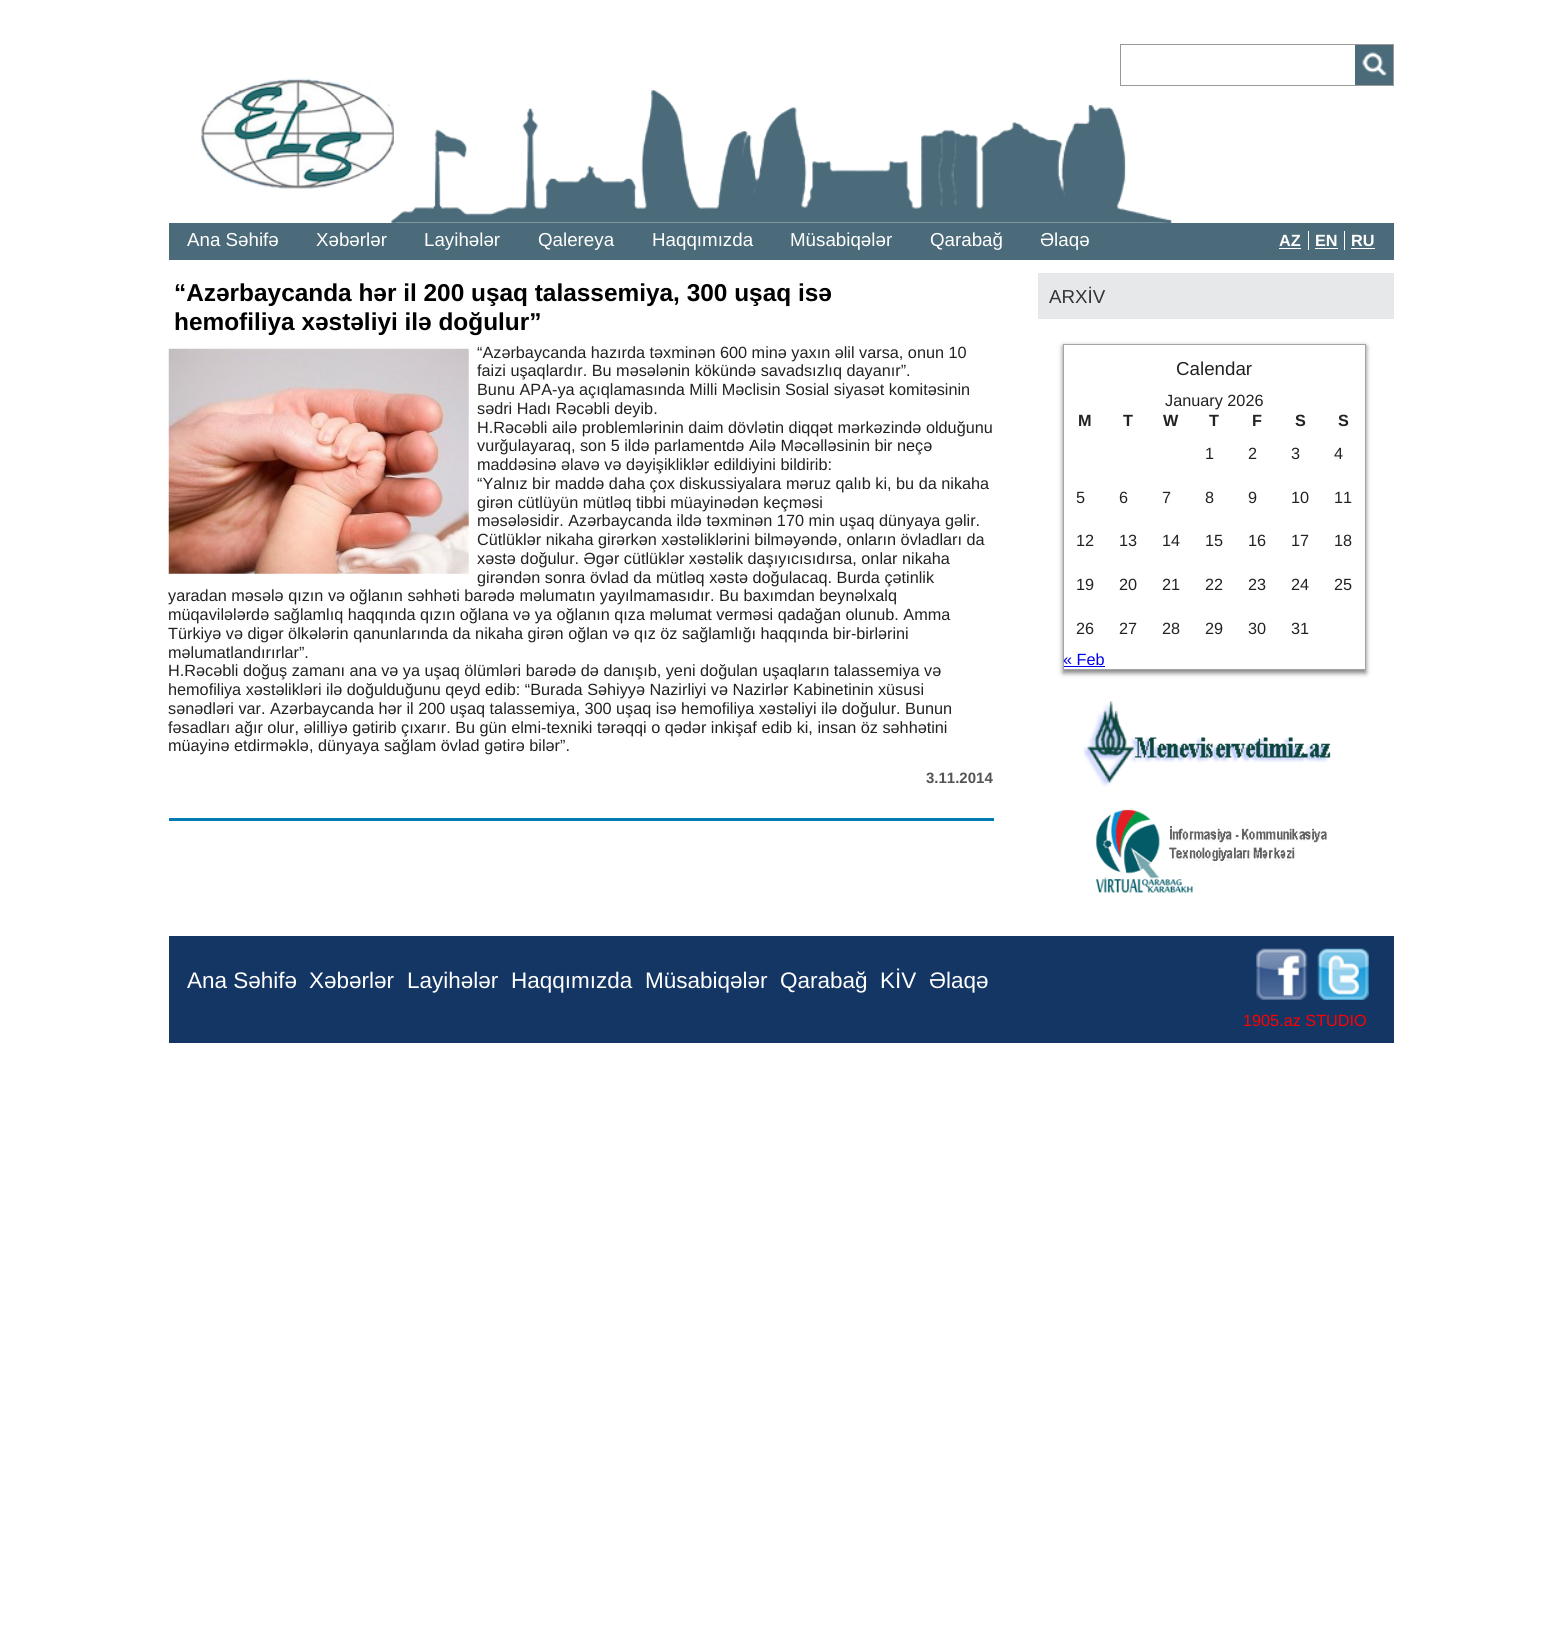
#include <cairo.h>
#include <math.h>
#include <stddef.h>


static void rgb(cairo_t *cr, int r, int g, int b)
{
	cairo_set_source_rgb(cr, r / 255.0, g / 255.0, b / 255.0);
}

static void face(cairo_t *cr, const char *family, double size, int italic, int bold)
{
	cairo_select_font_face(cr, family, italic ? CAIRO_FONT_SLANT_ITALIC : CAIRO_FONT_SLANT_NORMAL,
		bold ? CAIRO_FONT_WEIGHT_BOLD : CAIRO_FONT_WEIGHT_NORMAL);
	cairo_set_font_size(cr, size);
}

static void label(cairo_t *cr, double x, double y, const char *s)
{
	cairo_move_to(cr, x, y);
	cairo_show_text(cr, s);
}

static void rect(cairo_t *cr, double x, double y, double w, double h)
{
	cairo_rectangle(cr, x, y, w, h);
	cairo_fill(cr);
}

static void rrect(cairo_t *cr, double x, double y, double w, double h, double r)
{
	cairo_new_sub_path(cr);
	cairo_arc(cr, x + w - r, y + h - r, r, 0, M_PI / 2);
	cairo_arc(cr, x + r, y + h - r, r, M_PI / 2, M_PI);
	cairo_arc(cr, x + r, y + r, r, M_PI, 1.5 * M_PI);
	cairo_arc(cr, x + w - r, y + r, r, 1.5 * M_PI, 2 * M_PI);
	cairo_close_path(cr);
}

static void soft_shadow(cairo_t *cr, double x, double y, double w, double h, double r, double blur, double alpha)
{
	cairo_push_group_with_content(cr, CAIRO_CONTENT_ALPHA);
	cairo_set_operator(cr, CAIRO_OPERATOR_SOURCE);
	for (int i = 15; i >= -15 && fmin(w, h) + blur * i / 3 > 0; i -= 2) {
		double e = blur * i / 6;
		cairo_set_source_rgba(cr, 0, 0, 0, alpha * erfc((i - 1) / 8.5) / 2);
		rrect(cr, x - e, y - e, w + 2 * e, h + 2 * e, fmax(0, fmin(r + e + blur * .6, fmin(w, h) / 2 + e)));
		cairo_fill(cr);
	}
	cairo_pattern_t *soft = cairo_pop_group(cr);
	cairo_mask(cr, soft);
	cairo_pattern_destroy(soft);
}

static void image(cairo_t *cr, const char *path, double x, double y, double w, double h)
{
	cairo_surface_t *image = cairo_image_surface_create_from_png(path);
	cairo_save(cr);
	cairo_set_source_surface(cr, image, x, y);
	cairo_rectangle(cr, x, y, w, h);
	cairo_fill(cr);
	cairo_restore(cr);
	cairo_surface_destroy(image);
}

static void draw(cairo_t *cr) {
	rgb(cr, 255, 255, 255);
	cairo_paint(cr);
	image(cr, "image0.png", 391, 90, 781, 133);
	cairo_rectangle(cr, 1120.5, 44.5, 273, 41);
	rgb(cr, 153, 153, 153);
	cairo_set_line_width(cr, 1);
	cairo_stroke(cr);
	rgb(cr, 76, 107, 122);
	rect(cr, 1355, 45, 38, 40);
	image(cr, "image1.png", 1362, 52, 25, 24);
	image(cr, "image2.png", 201, 78, 193, 111);
	rect(cr, 169, 223, 1225, 37);
	face(cr, "Liberation Sans", 18.75, 0, 0);
	rgb(cr, 255, 255, 255);
	label(cr, 187, 246, "Ana Səhifə");
	label(cr, 316, 246, "Xəbərlər");
	label(cr, 424, 246, "Layihələr");
	label(cr, 538, 246, "Qalereya");
	label(cr, 652, 246, "Haqqımızda");
	label(cr, 790, 246, "Müsabiqələr");
	label(cr, 930, 246, "Qarabağ");
	label(cr, 1040, 246, "Əlaqə");
	face(cr, "Liberation Sans", 16.25, 0, 1);
	label(cr, 1279, 246, "AZ");
	rect(cr, 1279, 248, 22, 1);
	rect(cr, 1308, 231, 1, 19);
	label(cr, 1315, 246, "EN");
	rect(cr, 1315, 248, 23, 1);
	rect(cr, 1344, 231, 1, 19);
	label(cr, 1351, 246, "RU");
	rect(cr, 1351, 248, 24, 1);
	rgb(cr, 1, 121, 179);
	rect(cr, 169, 818, 825, 3);
	face(cr, "Liberation Sans", 24.4, 0, 1);
	rgb(cr, 0, 0, 0);
	label(cr, 174, 301, "“Azərbaycanda hər il 200 uşaq talassemiya, 300 uşaq isə");
	label(cr, 174, 330, "hemofiliya xəstəliyi ilə doğulur”");
	image(cr, "image3.png", 168, 348, 301, 226);
	face(cr, "Liberation Sans", 16.25, 0, 0);
	rgb(cr, 34, 34, 34);
	label(cr, 477, 358, "“Azərbaycanda hazırda təxminən 600 minə yaxın əlil varsa, onun 10");
	label(cr, 477, 376, "faizi uşaqlardır. Bu məsələnin kökündə savadsızlıq dayanır”.");
	label(cr, 477, 395, "Bunu APA-ya açıqlamasında Milli Məclisin Sosial siyasət komitəsinin");
	label(cr, 477, 414, "sədri Hadı Rəcəbli deyib.");
	label(cr, 477, 433, "H.Rəcəbli ailə problemlərinin daim dövlətin diqqət mərkəzində olduğunu");
	label(cr, 477, 451, "vurğulayaraq, son 5 ildə parlamentdə Ailə Məcəlləsinin bir neçə");
	label(cr, 477, 470, "maddəsinə əlavə və dəyişikliklər edildiyini bildirib:");
	label(cr, 477, 489, "“Yalnız bir maddə daha çox diskussiyalara məruz qalıb ki, bu da nikaha");
	label(cr, 477, 508, "girən cütlüyün mütləq tibbi müayinədən keçməsi");
	label(cr, 477, 526, "məsələsidir. Azərbaycanda ildə təxminən 170 min uşaq dünyaya gəlir.");
	label(cr, 477, 545, "Cütlüklər nikaha girərkən xəstəliklərini bilməyəndə, onların övladları da");
	label(cr, 477, 564, "xəstə doğulur. Əgər cütlüklər xəstəlik daşıyıcısıdırsa, onlar nikaha");
	label(cr, 477, 583, "girəndən sonra övlad da mütləq xəstə doğulacaq. Burda çətinlik");
	label(cr, 168, 601, "yaradan məsələ qızın və oğlanın səhhəti barədə məlumatın yayılmamasıdır. Bu baxımdan beynəlxalq");
	label(cr, 168, 620, "müqavilələrdə sağlamlıq haqqında qızın oğlana və ya oğlanın qıza məlumat verməsi qadağan olunub. Amma");
	label(cr, 168, 639, "Türkiyə və digər ölkələrin qanunlarında da nikaha girən oğlan və qız öz sağlamlığı haqqında bir-birlərini");
	label(cr, 168, 658, "məlumatlandırırlar”.");
	label(cr, 168, 676, "H.Rəcəbli doğuş zamanı ana və ya uşaq ölümləri barədə də danışıb, yeni doğulan uşaqların talassemiya və");
	label(cr, 168, 695, "hemofiliya xəstəlikləri ilə doğulduğunu qeyd edib: “Burada Səhiyyə Nazirliyi və Nazirlər Kabinetinin xüsusi");
	label(cr, 168, 714, "sənədləri var. Azərbaycanda hər il 200 uşaq talassemiya, 300 uşaq isə hemofiliya xəstəliyi ilə doğulur. Bunun");
	label(cr, 168, 733, "fəsadları ağır olur, əlilliyə gətirib çıxarır. Bu gün elmi-texniki tərəqqi o qədər inkişaf edib ki, insan öz səhhətini");
	label(cr, 168, 751, "müayinə etdirməklə, dünyaya sağlam övlad gətirə bilər”.");
	face(cr, "Liberation Sans", 15, 0, 1);
	rgb(cr, 83, 84, 86);
	label(cr, 926, 783, "3.11.2014");
	rgb(cr, 231, 232, 233);
	rect(cr, 1038, 273, 356, 46);
	face(cr, "Liberation Sans", 18.75, 0, 0);
	rgb(cr, 51, 51, 51);
	label(cr, 1049, 303, "ARXİV");
	cairo_save(cr);
	cairo_set_fill_rule(cr, CAIRO_FILL_RULE_EVEN_ODD);
	cairo_new_path(cr);
	cairo_move_to(cr, 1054, 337);
	cairo_line_to(cr, 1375, 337);
	cairo_line_to(cr, 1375, 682);
	cairo_line_to(cr, 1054, 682);
	cairo_close_path(cr);
	cairo_move_to(cr, 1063, 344);
	cairo_line_to(cr, 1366, 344);
	cairo_line_to(cr, 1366, 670);
	cairo_line_to(cr, 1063, 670);
	cairo_close_path(cr);
	cairo_clip(cr);
	rgb(cr, 50, 50, 50);
	soft_shadow(cr, 1063, 346, 303, 327, 0, 2.5, 0.63);
	cairo_restore(cr);
	cairo_rectangle(cr, 1063.5, 344.5, 302, 325);
	rgb(cr, 162, 163, 164);
	cairo_stroke(cr);
	rgb(cr, 34, 34, 34);
	label(cr, 1176, 375, "Calendar");
	face(cr, "Liberation Sans", 16.25, 0, 0);
	label(cr, 1165, 406, "January 2026");
	face(cr, "Liberation Sans", 16.25, 0, 1);
	label(cr, 1078, 426, "M");
	label(cr, 1123, 426, "T");
	label(cr, 1163, 426, "W");
	label(cr, 1209, 426, "T");
	label(cr, 1252, 426, "F");
	label(cr, 1295, 426, "S");
	label(cr, 1338, 426, "S");
	face(cr, "Liberation Sans", 16.25, 0, 0);
	label(cr, 1205, 459, "1");
	label(cr, 1248, 459, "2");
	label(cr, 1291, 459, "3");
	label(cr, 1334, 459, "4");
	label(cr, 1076, 503, "5");
	label(cr, 1119, 503, "6");
	label(cr, 1162, 503, "7");
	label(cr, 1205, 503, "8");
	label(cr, 1248, 503, "9");
	label(cr, 1291, 503, "10");
	label(cr, 1334, 503, "11");
	label(cr, 1076, 546, "12");
	label(cr, 1119, 546, "13");
	label(cr, 1162, 546, "14");
	label(cr, 1205, 546, "15");
	label(cr, 1248, 546, "16");
	label(cr, 1291, 546, "17");
	label(cr, 1334, 546, "18");
	label(cr, 1076, 590, "19");
	label(cr, 1119, 590, "20");
	label(cr, 1162, 590, "21");
	label(cr, 1205, 590, "22");
	label(cr, 1248, 590, "23");
	label(cr, 1291, 590, "24");
	label(cr, 1334, 590, "25");
	label(cr, 1076, 634, "26");
	label(cr, 1119, 634, "27");
	label(cr, 1162, 634, "28");
	label(cr, 1205, 634, "29");
	label(cr, 1248, 634, "30");
	label(cr, 1291, 634, "31");
	rgb(cr, 0, 0, 238);
	label(cr, 1063, 665, "« Feb");
	rect(cr, 1064, 666, 41, 1);
	image(cr, "image4.png", 1083, 701, 248, 86);
	image(cr, "image5.png", 1096, 809, 231, 84);
	rgb(cr, 20, 54, 100);
	rect(cr, 169, 936, 1225, 107);
	face(cr, "Liberation Sans", 22.5, 0, 0);
	rgb(cr, 255, 255, 255);
	label(cr, 187, 988, "Ana Səhifə");
	label(cr, 309, 988, "Xəbərlər");
	label(cr, 407, 988, "Layihələr");
	label(cr, 511, 988, "Haqqımızda");
	label(cr, 645, 988, "Müsabiqələr");
	label(cr, 780, 988, "Qarabağ");
	label(cr, 880, 988, "KİV");
	label(cr, 929, 988, "Əlaqə");
	image(cr, "image6.png", 1256, 948, 51, 52);
	image(cr, "image7.png", 1306, 948, 63, 52);
	face(cr, "Liberation Sans", 16.25, 0, 0);
	rgb(cr, 255, 0, 0);
	label(cr, 1243, 1026, "1905.az STUDIO");
}

int main(void) {
	cairo_surface_t *surface = cairo_image_surface_create(CAIRO_FORMAT_RGB24, 1561, 1645);
	cairo_t *cr = cairo_create(surface);
	cairo_font_options_t *options = cairo_font_options_create();
	cairo_font_options_set_hint_metrics(options, CAIRO_HINT_METRICS_OFF);
	cairo_font_options_set_hint_style(options, CAIRO_HINT_STYLE_NONE);
	cairo_set_font_options(cr, options);
	cairo_set_miter_limit(cr, 4);
	draw(cr);
	cairo_surface_write_to_png(surface, "render.png");
	cairo_font_options_destroy(options);
	cairo_destroy(cr);
	cairo_surface_destroy(surface);
	return 0;
}
